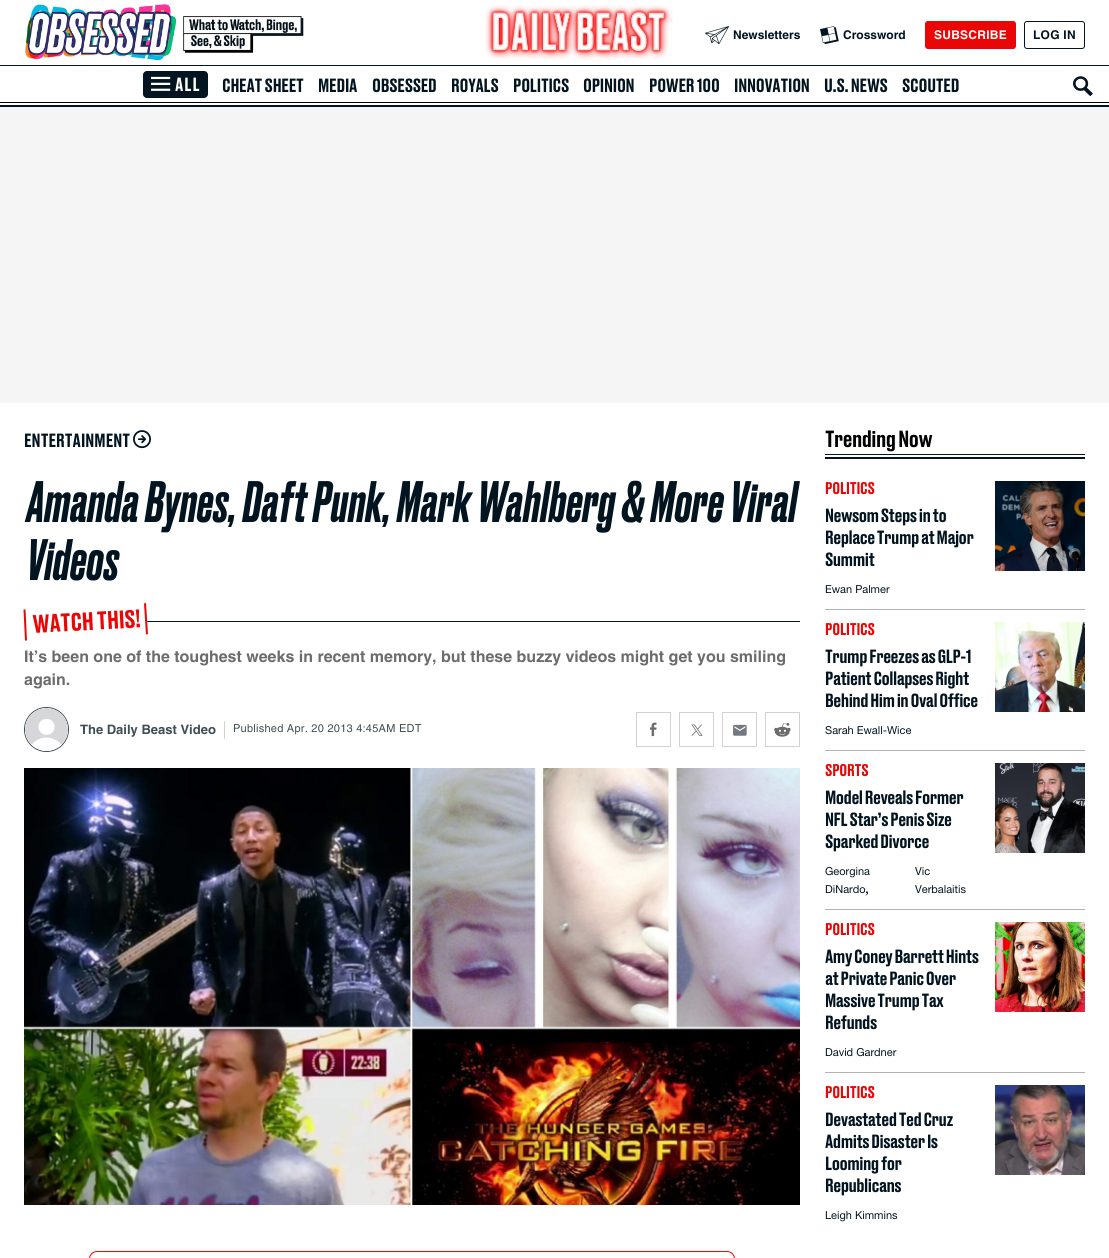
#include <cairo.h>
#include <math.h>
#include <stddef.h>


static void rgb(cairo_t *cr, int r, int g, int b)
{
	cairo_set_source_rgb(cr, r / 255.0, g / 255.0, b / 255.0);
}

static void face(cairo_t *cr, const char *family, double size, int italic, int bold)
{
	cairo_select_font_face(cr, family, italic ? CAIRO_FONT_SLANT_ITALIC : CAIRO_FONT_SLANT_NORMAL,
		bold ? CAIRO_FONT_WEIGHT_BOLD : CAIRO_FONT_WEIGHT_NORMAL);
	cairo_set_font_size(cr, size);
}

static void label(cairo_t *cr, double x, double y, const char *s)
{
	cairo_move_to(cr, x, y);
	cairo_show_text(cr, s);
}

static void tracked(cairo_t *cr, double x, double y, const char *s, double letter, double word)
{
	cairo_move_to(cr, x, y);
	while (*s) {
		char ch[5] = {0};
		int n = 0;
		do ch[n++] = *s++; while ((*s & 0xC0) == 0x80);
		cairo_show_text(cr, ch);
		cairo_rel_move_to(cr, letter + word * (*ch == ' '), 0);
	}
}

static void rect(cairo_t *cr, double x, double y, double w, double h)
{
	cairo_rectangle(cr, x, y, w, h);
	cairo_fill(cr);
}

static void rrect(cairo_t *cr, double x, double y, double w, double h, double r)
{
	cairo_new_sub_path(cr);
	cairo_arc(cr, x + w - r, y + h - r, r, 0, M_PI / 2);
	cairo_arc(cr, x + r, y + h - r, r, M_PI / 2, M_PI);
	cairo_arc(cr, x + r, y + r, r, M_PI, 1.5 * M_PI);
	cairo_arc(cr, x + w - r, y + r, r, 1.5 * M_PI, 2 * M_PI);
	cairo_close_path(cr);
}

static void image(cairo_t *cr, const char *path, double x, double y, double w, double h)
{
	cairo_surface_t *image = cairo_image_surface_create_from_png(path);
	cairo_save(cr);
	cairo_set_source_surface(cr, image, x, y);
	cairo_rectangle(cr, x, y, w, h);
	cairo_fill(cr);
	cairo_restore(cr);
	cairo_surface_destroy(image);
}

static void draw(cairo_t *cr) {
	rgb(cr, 255, 255, 255);
	cairo_paint(cr);
	rgb(cr, 2, 20, 31);
	rect(cr, 0, 105, 1109, 2);
	image(cr, "image0.png", 24, 4, 280, 57);
	image(cr, "image1.png", 485, 5, 188, 55);
	image(cr, "image2.png", 705, 26, 24, 19);
	face(cr, "Helvetica", 12, 0, 1);
	label(cr, 733, 39, "Newsletters");
	image(cr, "image3.png", 820, 26, 19, 19);
	label(cr, 843, 39, "Crossword");
	rgb(cr, 234, 6, 6);
	rrect(cr, 925.5, 21.5, 90, 27, 2.5);
	cairo_fill_preserve(cr);
	cairo_set_line_width(cr, 1);
	cairo_stroke(cr);
	rgb(cr, 255, 255, 255);
	tracked(cr, 934, 39, "SUBSCRIBE", 0.25, 0);
	rrect(cr, 1024.5, 21.5, 60, 27, 2.5);
	rgb(cr, 2, 20, 31);
	cairo_stroke(cr);
	tracked(cr, 1033, 39, "LOG IN", 0.25, 0);
	rect(cr, 0, 65, 1109, 1);
	rrect(cr, 143, 71, 65, 27, 4);
	cairo_fill(cr);
	image(cr, "image4.png", 151, 76, 20, 15);
	face(cr, "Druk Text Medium", 18, 0, 0);
	rgb(cr, 255, 255, 255);
	tracked(cr, 175, 91, "ALL", 1, 0);
	rgb(cr, 2, 20, 31);
	tracked(cr, 222, 92, "CHEAT SHEET", -0.25, 0);
	tracked(cr, 318, 92, "MEDIA", -0.25, 0);
	tracked(cr, 372, 92, "OBSESSED", -0.25, 0);
	tracked(cr, 451, 92, "ROYALS", -0.25, 0);
	tracked(cr, 513, 92, "POLITICS", -0.25, 0);
	tracked(cr, 583, 92, "OPINION", -0.25, 0);
	tracked(cr, 649, 92, "POWER 100", -0.25, 0);
	tracked(cr, 734, 92, "INNOVATION", -0.25, 0);
	tracked(cr, 824, 92, "U.S. NEWS", -0.25, 0);
	tracked(cr, 902, 92, "SCOUTED", -0.25, 0);
	image(cr, "image5.png", 1073, 76, 20, 21);
	rgb(cr, 0, 0, 0);
	rect(cr, 0, 102, 1109, 1);
	rgb(cr, 245, 245, 245);
	rect(cr, 0, 107, 1109, 296);
	rgb(cr, 2, 20, 31);
	label(cr, 24, 447, "ENTERTAINMENT");
	image(cr, "image6.png", 133, 430, 18, 19);
	face(cr, "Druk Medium", 55, 1, 0);
	tracked(cr, 27, 522, "Amanda Bynes, Daft Punk, Mark Wahlberg & More Viral", 0.5, 0);
	tracked(cr, 27, 580, "Videos", 0.5, 0);
	rect(cr, 147, 621, 653, 1);
	rgb(cr, 255, 255, 255);
	cairo_new_path(cr);
	cairo_move_to(cr, 23, 610);
	cairo_line_to(cr, 146, 603);
	cairo_line_to(cr, 148, 634);
	cairo_line_to(cr, 25, 641);
	cairo_close_path(cr);
	cairo_fill(cr);
	rgb(cr, 234, 6, 6);
	cairo_new_path(cr);
	cairo_move_to(cr, 144, 603.5);
	cairo_line_to(cr, 146, 603);
	cairo_line_to(cr, 148, 634);
	cairo_line_to(cr, 146, 634.5);
	cairo_close_path(cr);
	cairo_fill(cr);
	cairo_new_path(cr);
	cairo_move_to(cr, 23.5, 609.5);
	cairo_line_to(cr, 25.5, 609.5);
	cairo_line_to(cr, 27, 640.5);
	cairo_line_to(cr, 25, 640.5);
	cairo_close_path(cr);
	cairo_fill(cr);
	face(cr, "Druk Text Medium", 24, 0, 0);
	cairo_save(cr);
	cairo_translate(cr, 33, 633);
	cairo_rotate(cr, -3 * M_PI / 180);
	tracked(cr, 0, 0, "WATCH THIS!", -0.25, 0);
	cairo_restore(cr);
	face(cr, "Helvetica", 16, 0, 1);
	rgb(cr, 108, 108, 108);
	label(cr, 24, 662, "It’s been one of the toughest weeks in recent memory, but these buzzy videos might get you smiling");
	label(cr, 24, 685, "again.");
	cairo_new_path(cr);
	cairo_arc(cr, 46.5, 729.5, 22, 0, 2 * M_PI);
	rgb(cr, 63, 77, 85);
	cairo_stroke(cr);
	image(cr, "image7.png", 25, 708, 43, 43);
	face(cr, "Helvetica", 13, 0, 1);
	label(cr, 80, 734, "The Daily Beast Video");
	rgb(cr, 213, 209, 209);
	rect(cr, 224, 721, 1, 18);
	face(cr, "Helvetica", 11, 0, 0);
	rgb(cr, 63, 77, 85);
	tracked(cr, 233, 732, "Published Apr. 20 2013 4:45AM EDT", 0.25, 0);
	image(cr, "image8.png", 636, 712, 35, 35);
	image(cr, "image9.png", 679, 712, 35, 35);
	image(cr, "image10.png", 722, 712, 35, 35);
	image(cr, "image11.png", 765, 712, 35, 35);
	image(cr, "image12.png", 24, 768, 776, 437);
	rrect(cr, 89.5, 1251.5, 645, 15, 7.5);
	rgb(cr, 255, 0, 0);
	cairo_stroke(cr);
	face(cr, "Druk Text Medium", 22, 0, 0);
	rgb(cr, 0, 0, 0);
	tracked(cr, 825, 447, "Trending Now", -0.5, 0);
	rgb(cr, 2, 20, 31);
	rect(cr, 825, 454, 260, 1);
	rect(cr, 825, 457, 260, 2);
	rgb(cr, 178, 178, 178);
	rect(cr, 825, 609, 260, 1);
	face(cr, "Druk Text Medium", 16, 0, 0);
	rgb(cr, 234, 6, 6);
	tracked(cr, 825, 494, "POLITICS", -0.25, 0);
	face(cr, "Druk Text Medium", 18, 0, 0);
	rgb(cr, 2, 20, 31);
	tracked(cr, 825, 522, "Newsom Steps in to", -0.5, 0);
	tracked(cr, 825, 544, "Replace Trump at Major", -0.5, 0);
	tracked(cr, 825, 566, "Summit", -0.5, 0);
	face(cr, "Helvetica Neue", 11, 0, 0);
	label(cr, 825, 593, "Ewan Palmer");
	image(cr, "image13.png", 995, 481, 90, 90);
	rgb(cr, 178, 178, 178);
	rect(cr, 825, 750, 260, 1);
	face(cr, "Druk Text Medium", 16, 0, 0);
	rgb(cr, 234, 6, 6);
	tracked(cr, 825, 635, "POLITICS", -0.25, 0);
	face(cr, "Druk Text Medium", 18, 0, 0);
	rgb(cr, 2, 20, 31);
	tracked(cr, 825, 663, "Trump Freezes as GLP-1", -0.5, 0);
	tracked(cr, 825, 685, "Patient Collapses Right", -0.5, 0);
	tracked(cr, 825, 707, "Behind Him in Oval Office", -0.5, 0);
	face(cr, "Helvetica Neue", 11, 0, 0);
	label(cr, 825, 734, "Sarah Ewall-Wice");
	image(cr, "image14.png", 995, 622, 90, 90);
	rgb(cr, 178, 178, 178);
	rect(cr, 825, 909, 260, 1);
	face(cr, "Druk Text Medium", 16, 0, 0);
	rgb(cr, 234, 6, 6);
	tracked(cr, 825, 776, "SPORTS", -0.25, 0);
	face(cr, "Druk Text Medium", 18, 0, 0);
	rgb(cr, 2, 20, 31);
	tracked(cr, 825, 804, "Model Reveals Former", -0.5, 0);
	tracked(cr, 825, 826, "NFL Star’s Penis Size", -0.5, 0);
	tracked(cr, 825, 848, "Sparked Divorce", -0.5, 0);
	face(cr, "Helvetica Neue", 11, 0, 0);
	label(cr, 825, 875, "Georgina");
	label(cr, 825, 893, "DiNardo");
	face(cr, "Liberation Serif", 16, 0, 0);
	label(cr, 865, 893, ",");
	face(cr, "Helvetica Neue", 11, 0, 0);
	label(cr, 915, 875, "Vic");
	label(cr, 915, 893, "Verbalaitis");
	image(cr, "image15.png", 995, 763, 90, 90);
	rgb(cr, 178, 178, 178);
	rect(cr, 825, 1072, 260, 1);
	face(cr, "Druk Text Medium", 16, 0, 0);
	rgb(cr, 234, 6, 6);
	tracked(cr, 825, 935, "POLITICS", -0.25, 0);
	face(cr, "Druk Text Medium", 18, 0, 0);
	rgb(cr, 2, 20, 31);
	tracked(cr, 825, 963, "Amy Coney Barrett Hints", -0.5, 0);
	tracked(cr, 825, 985, "at Private Panic Over", -0.5, 0);
	tracked(cr, 825, 1007, "Massive Trump Tax", -0.5, 0);
	tracked(cr, 825, 1029, "Refunds", -0.5, 0);
	face(cr, "Helvetica Neue", 11, 0, 0);
	label(cr, 825, 1056, "David Gardner");
	image(cr, "image16.png", 995, 922, 90, 90);
	face(cr, "Druk Text Medium", 16, 0, 0);
	rgb(cr, 234, 6, 6);
	tracked(cr, 825, 1098, "POLITICS", -0.25, 0);
	face(cr, "Druk Text Medium", 18, 0, 0);
	rgb(cr, 2, 20, 31);
	tracked(cr, 825, 1126, "Devastated Ted Cruz", -0.5, 0);
	tracked(cr, 825, 1148, "Admits Disaster Is", -0.5, 0);
	tracked(cr, 825, 1170, "Looming for", -0.5, 0);
	tracked(cr, 825, 1192, "Republicans", -0.5, 0);
	face(cr, "Helvetica Neue", 11, 0, 0);
	label(cr, 825, 1219, "Leigh Kimmins");
	image(cr, "image17.png", 995, 1085, 90, 90);
}

int main(void) {
	cairo_surface_t *surface = cairo_image_surface_create(CAIRO_FORMAT_RGB24, 1109, 1258);
	cairo_t *cr = cairo_create(surface);
	cairo_font_options_t *options = cairo_font_options_create();
	cairo_font_options_set_hint_metrics(options, CAIRO_HINT_METRICS_OFF);
	cairo_font_options_set_hint_style(options, CAIRO_HINT_STYLE_NONE);
	cairo_set_font_options(cr, options);
	cairo_set_miter_limit(cr, 4);
	draw(cr);
	cairo_surface_write_to_png(surface, "render.png");
	cairo_font_options_destroy(options);
	cairo_destroy(cr);
	cairo_surface_destroy(surface);
	return 0;
}
